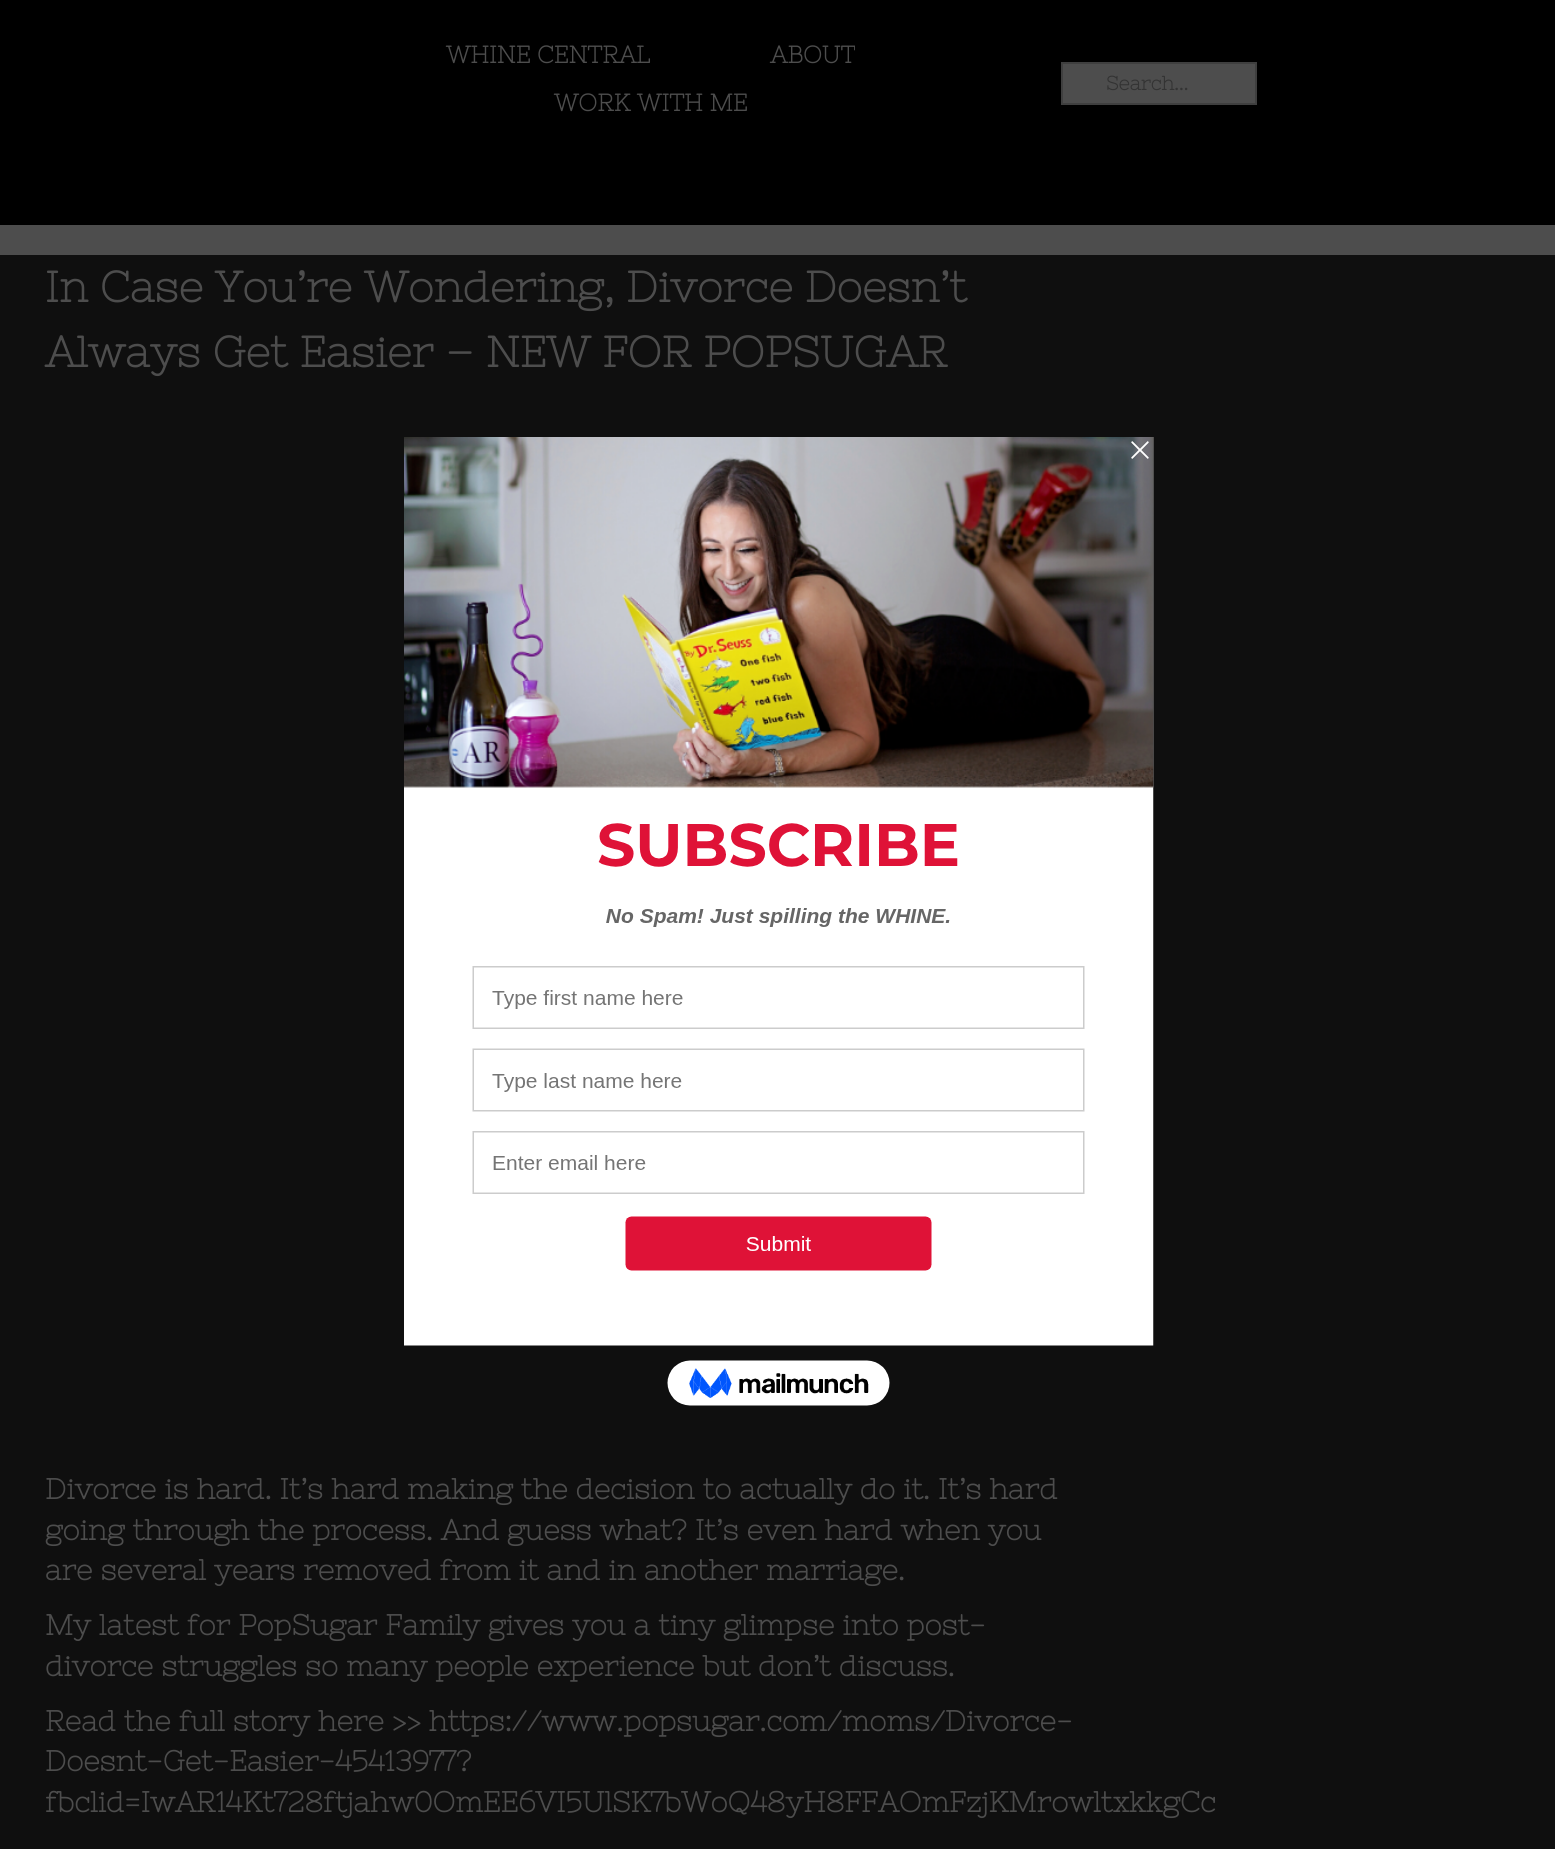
#include <cairo.h>
#include <math.h>
#include <stddef.h>


static void rgb(cairo_t *cr, int r, int g, int b)
{
	cairo_set_source_rgb(cr, r / 255.0, g / 255.0, b / 255.0);
}

static void face(cairo_t *cr, const char *family, double size, int italic, int bold)
{
	cairo_select_font_face(cr, family, italic ? CAIRO_FONT_SLANT_ITALIC : CAIRO_FONT_SLANT_NORMAL,
		bold ? CAIRO_FONT_WEIGHT_BOLD : CAIRO_FONT_WEIGHT_NORMAL);
	cairo_set_font_size(cr, size);
}

static void label(cairo_t *cr, double x, double y, const char *s)
{
	cairo_move_to(cr, x, y);
	cairo_show_text(cr, s);
}

static void rect(cairo_t *cr, double x, double y, double w, double h)
{
	cairo_rectangle(cr, x, y, w, h);
	cairo_fill(cr);
}

static void image(cairo_t *cr, const char *path, double x, double y, double w, double h)
{
	cairo_surface_t *image = cairo_image_surface_create_from_png(path);
	cairo_save(cr);
	cairo_set_source_surface(cr, image, x, y);
	cairo_rectangle(cr, x, y, w, h);
	cairo_fill(cr);
	cairo_restore(cr);
	cairo_surface_destroy(image);
}

static void draw(cairo_t *cr) {
	rgb(cr, 77, 77, 77);
	cairo_paint(cr);
	rgb(cr, 0, 0, 0);
	rect(cr, 0, 0, 1555, 225);
	face(cr, "Nixie One", 24, 0, 1);
	rgb(cr, 77, 77, 77);
	label(cr, 446, 63, "WHINE CENTRAL");
	label(cr, 770, 63, "ABOUT");
	label(cr, 554, 111, "WORK WITH ME");
	cairo_rectangle(cr, 1062, 63, 194, 41);
	cairo_fill_preserve(cr);
	rgb(cr, 63, 63, 63);
	cairo_stroke(cr);
	face(cr, "Nixie One", 19.5, 0, 1);
	rgb(cr, 51, 51, 51);
	label(cr, 1106, 90, "Search...");
	rgb(cr, 15, 15, 15);
	rect(cr, 0, 255, 1555, 1594);
	face(cr, "Nixie One", 43.2, 0, 1);
	rgb(cr, 77, 77, 77);
	label(cr, 45, 302, "In Case You’re Wondering, Divorce Doesn’t");
	label(cr, 45, 367, "Always Get Easier – NEW FOR POPSUGAR");
	face(cr, "Nixie One", 28.8, 0, 1);
	label(cr, 45, 1499, "Divorce is hard. It’s hard making the decision to actually do it. It’s hard");
	label(cr, 45, 1540, "going through the process. And guess what? It’s even hard when you");
	label(cr, 45, 1580, "are several years removed from it and in another marriage.");
	label(cr, 45, 1635, "My latest for PopSugar Family gives you a tiny glimpse into post-");
	label(cr, 45, 1676, "divorce struggles so many people experience but don’t discuss.");
	label(cr, 45, 1731, "Read the full story here >> https://www.popsugar.com/moms/Divorce-");
	label(cr, 45, 1771, "Doesnt-Get-Easier-45413977?");
	label(cr, 45, 1812, "fbclid=IwAR14Kt728ftjahw0OmEE6VI5UlSK7bWoQ48yH8FFAOmFzjKMrowltxkkgCc");
	image(cr, "image0.png", 404, 437, 750, 969);
}

int main(void) {
	cairo_surface_t *surface = cairo_image_surface_create(CAIRO_FORMAT_RGB24, 1555, 1849);
	cairo_t *cr = cairo_create(surface);
	cairo_font_options_t *options = cairo_font_options_create();
	cairo_font_options_set_hint_metrics(options, CAIRO_HINT_METRICS_OFF);
	cairo_font_options_set_hint_style(options, CAIRO_HINT_STYLE_NONE);
	cairo_set_font_options(cr, options);
	cairo_set_miter_limit(cr, 4);
	draw(cr);
	cairo_surface_write_to_png(surface, "render.png");
	cairo_font_options_destroy(options);
	cairo_destroy(cr);
	cairo_surface_destroy(surface);
	return 0;
}
